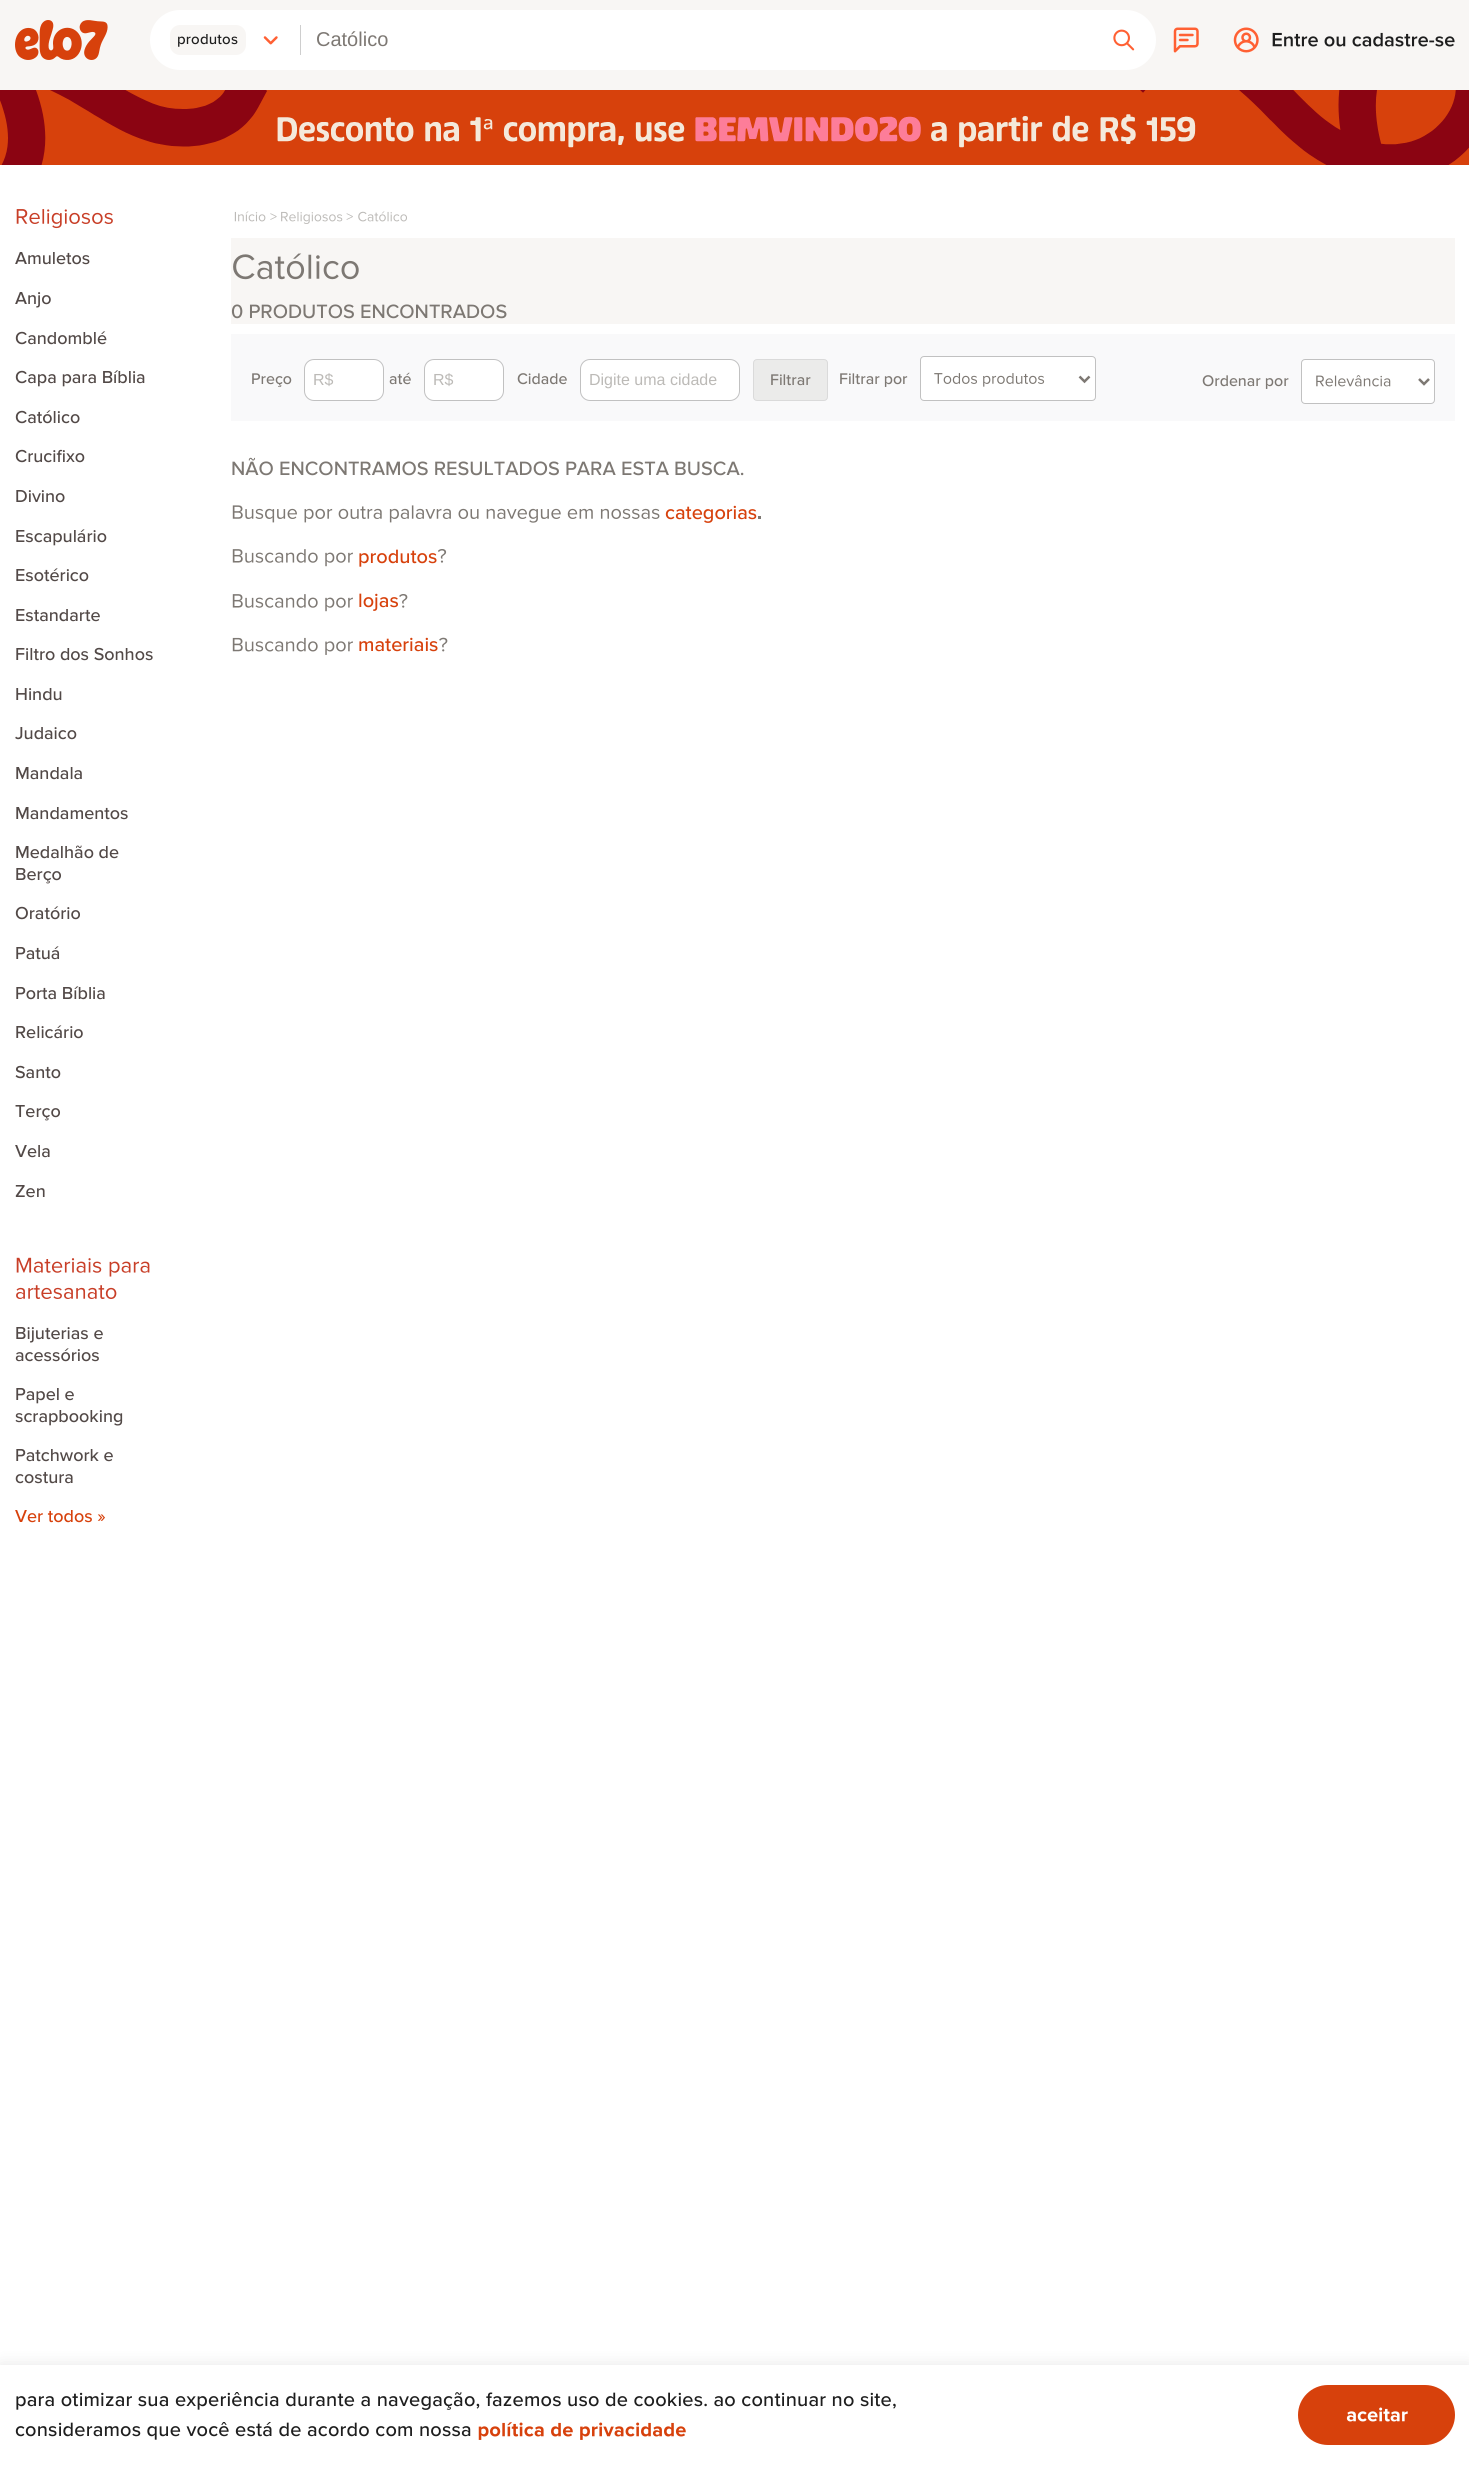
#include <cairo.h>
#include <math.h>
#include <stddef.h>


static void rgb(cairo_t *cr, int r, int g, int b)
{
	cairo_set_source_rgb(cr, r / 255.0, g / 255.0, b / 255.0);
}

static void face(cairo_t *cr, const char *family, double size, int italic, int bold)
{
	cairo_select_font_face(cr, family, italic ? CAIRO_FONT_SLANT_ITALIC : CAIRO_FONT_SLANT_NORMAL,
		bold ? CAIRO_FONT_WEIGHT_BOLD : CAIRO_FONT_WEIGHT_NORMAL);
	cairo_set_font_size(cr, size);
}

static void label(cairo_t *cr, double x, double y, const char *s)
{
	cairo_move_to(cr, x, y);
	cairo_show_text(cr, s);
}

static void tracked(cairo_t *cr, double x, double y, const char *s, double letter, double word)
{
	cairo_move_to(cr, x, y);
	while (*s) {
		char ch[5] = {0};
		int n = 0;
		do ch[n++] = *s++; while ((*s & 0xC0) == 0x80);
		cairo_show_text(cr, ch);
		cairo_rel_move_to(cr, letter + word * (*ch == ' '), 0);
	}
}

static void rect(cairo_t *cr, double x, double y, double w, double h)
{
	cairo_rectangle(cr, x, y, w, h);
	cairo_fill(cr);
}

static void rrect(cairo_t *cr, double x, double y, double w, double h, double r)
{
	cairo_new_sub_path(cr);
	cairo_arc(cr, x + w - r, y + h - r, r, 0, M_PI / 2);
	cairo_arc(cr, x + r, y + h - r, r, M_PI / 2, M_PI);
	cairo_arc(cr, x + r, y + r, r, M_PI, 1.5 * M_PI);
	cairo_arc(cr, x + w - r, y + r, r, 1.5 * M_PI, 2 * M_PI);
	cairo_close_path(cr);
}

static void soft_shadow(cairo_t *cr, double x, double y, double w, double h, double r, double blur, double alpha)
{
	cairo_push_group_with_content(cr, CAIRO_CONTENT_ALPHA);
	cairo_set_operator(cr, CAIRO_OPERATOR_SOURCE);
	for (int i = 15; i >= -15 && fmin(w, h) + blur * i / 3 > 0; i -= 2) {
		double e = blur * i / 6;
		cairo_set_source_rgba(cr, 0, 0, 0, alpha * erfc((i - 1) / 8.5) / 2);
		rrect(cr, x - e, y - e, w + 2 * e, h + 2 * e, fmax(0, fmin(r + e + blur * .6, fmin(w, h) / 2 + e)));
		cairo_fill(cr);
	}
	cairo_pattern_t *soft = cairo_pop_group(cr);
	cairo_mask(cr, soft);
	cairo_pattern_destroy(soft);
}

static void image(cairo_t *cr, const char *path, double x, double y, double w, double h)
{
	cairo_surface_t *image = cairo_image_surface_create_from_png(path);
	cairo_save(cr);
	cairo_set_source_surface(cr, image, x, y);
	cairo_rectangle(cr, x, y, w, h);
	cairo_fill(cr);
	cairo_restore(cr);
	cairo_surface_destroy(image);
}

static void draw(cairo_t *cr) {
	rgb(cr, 255, 255, 255);
	cairo_paint(cr);
	rgb(cr, 248, 246, 244);
	rect(cr, 0, 0, 1469, 90);
	image(cr, "image0.png", 15, 20, 93, 40);
	rgb(cr, 255, 255, 255);
	cairo_new_path(cr);
	cairo_move_to(cr, 180, 10);
	cairo_line_to(cr, 301, 10);
	cairo_line_to(cr, 301, 70);
	cairo_line_to(cr, 180, 70);
	cairo_curve_to(cr, 163.5, 70, 150, 56.5, 150, 40);
	cairo_curve_to(cr, 150, 23.5, 163.5, 10, 180, 10);
	cairo_close_path(cr);
	cairo_fill(cr);
	rgb(cr, 248, 246, 244);
	rrect(cr, 170, 25, 76, 30, 10);
	cairo_fill(cr);
	face(cr, "Proxima Nova Medium", 15, 0, 0);
	rgb(cr, 30, 30, 30);
	tracked(cr, 177, 44, "produtos", 0.2, 0);
	image(cr, "image1.png", 263, 36, 15, 9);
	rgb(cr, 206, 206, 206);
	rect(cr, 300, 25, 1, 30);
	rgb(cr, 255, 255, 255);
	rect(cr, 301, 10, 790, 60);
	face(cr, "Liberation Sans", 20, 0, 0);
	rgb(cr, 125, 120, 115);
	label(cr, 316, 46, "Católico");
	rgb(cr, 255, 255, 255);
	cairo_new_path(cr);
	cairo_move_to(cr, 1091, 10);
	cairo_line_to(cr, 1126, 10);
	cairo_curve_to(cr, 1142.5, 10, 1156, 23.5, 1156, 40);
	cairo_curve_to(cr, 1156, 56.5, 1142.5, 70, 1126, 70);
	cairo_line_to(cr, 1091, 70);
	cairo_close_path(cr);
	cairo_fill(cr);
	image(cr, "image2.png", 1113, 29, 22, 22);
	image(cr, "image3.png", 1173, 27, 26, 26);
	image(cr, "image4.png", 1233, 27, 26, 26);
	image(cr, "image5.png", 1272, 32, 183, 15);
	image(cr, "image6.png", 0, 90, 1469, 75);
	image(cr, "image7.png", 16, 209, 97, 20);
	face(cr, "Proxima Nova Medium", 18, 0, 0);
	rgb(cr, 82, 73, 71);
	label(cr, 15, 264, "Amuletos");
	label(cr, 15, 304, "Anjo");
	label(cr, 15, 344, "Candomblé");
	label(cr, 15, 383, "Capa para Bíblia");
	label(cr, 15, 423, "Católico");
	label(cr, 15, 462, "Crucifixo");
	label(cr, 15, 502, "Divino");
	label(cr, 15, 542, "Escapulário");
	label(cr, 15, 581, "Esotérico");
	label(cr, 15, 621, "Estandarte");
	label(cr, 15, 660, "Filtro dos Sonhos");
	label(cr, 15, 700, "Hindu");
	label(cr, 15, 739, "Judaico");
	label(cr, 15, 779, "Mandala");
	label(cr, 15, 819, "Mandamentos");
	label(cr, 15, 858, "Medalhão de");
	label(cr, 15, 880, "Berço");
	label(cr, 15, 919, "Oratório");
	label(cr, 15, 959, "Patuá");
	label(cr, 15, 999, "Porta Bíblia");
	label(cr, 15, 1038, "Relicário");
	label(cr, 15, 1078, "Santo");
	label(cr, 15, 1117, "Terço");
	label(cr, 15, 1157, "Vela");
	label(cr, 15, 1197, "Zen");
	image(cr, "image8.png", 16, 1257, 134, 20);
	image(cr, "image9.png", 16, 1285, 101, 14);
	label(cr, 15, 1339, "Bijuterias e");
	label(cr, 15, 1361, "acessórios");
	label(cr, 15, 1400, "Papel e");
	label(cr, 15, 1422, "scrapbooking");
	label(cr, 15, 1461, "Patchwork e");
	label(cr, 15, 1483, "costura");
	rgb(cr, 215, 65, 12);
	label(cr, 15, 1522, "Ver todos »");
	image(cr, "image10.png", 234, 211, 32, 11);
	image(cr, "image11.png", 270, 213, 7, 7);
	image(cr, "image12.png", 281, 211, 62, 13);
	image(cr, "image13.png", 346, 213, 7, 7);
	image(cr, "image14.png", 358, 211, 49, 11);
	rgb(cr, 248, 246, 244);
	rect(cr, 231, 238, 1224, 86);
	image(cr, "image15.png", 233, 253, 126, 27);
	face(cr, "Proxima Nova Medium", 20, 0, 0);
	rgb(cr, 125, 120, 115);
	label(cr, 231, 318, "0 PRODUTOS ENCONTRADOS");
	rgb(cr, 249, 249, 250);
	rect(cr, 231, 334, 1224, 87);
	face(cr, "Proxima Nova Medium", 16, 0, 0);
	rgb(cr, 125, 120, 115);
	label(cr, 251, 384, "Preço");
	rgb(cr, 255, 255, 255);
	rrect(cr, 304.5, 359.5, 79, 41, 9.5);
	cairo_fill_preserve(cr);
	rgb(cr, 193, 193, 193);
	cairo_set_line_width(cr, 1);
	cairo_stroke(cr);
	face(cr, "Liberation Sans", 16, 0, 0);
	rgb(cr, 188, 186, 183);
	label(cr, 313, 385, "R$");
	face(cr, "Proxima Nova Medium", 16, 0, 0);
	rgb(cr, 125, 120, 115);
	label(cr, 389, 384, "até");
	rgb(cr, 255, 255, 255);
	rrect(cr, 424.5, 359.5, 79, 41, 9.5);
	cairo_fill_preserve(cr);
	rgb(cr, 193, 193, 193);
	cairo_stroke(cr);
	face(cr, "Liberation Sans", 16, 0, 0);
	rgb(cr, 188, 186, 183);
	label(cr, 433, 385, "R$");
	face(cr, "Proxima Nova Medium", 16, 0, 0);
	rgb(cr, 125, 120, 115);
	label(cr, 517, 384, "Cidade");
	rgb(cr, 255, 255, 255);
	rrect(cr, 580.5, 359.5, 159, 41, 9.5);
	cairo_fill_preserve(cr);
	rgb(cr, 193, 193, 193);
	cairo_stroke(cr);
	face(cr, "Liberation Sans", 16, 0, 0);
	rgb(cr, 188, 186, 183);
	label(cr, 589, 385, "Digite uma cidade");
	rgb(cr, 235, 235, 234);
	rrect(cr, 753.5, 359.5, 74, 41, 3.5);
	cairo_fill_preserve(cr);
	rgb(cr, 218, 218, 218);
	cairo_stroke(cr);
	face(cr, "Proxima Nova Medium", 16, 0, 0);
	rgb(cr, 125, 120, 115);
	label(cr, 770, 385, "Filtrar");
	label(cr, 839, 384, "Filtrar por");
	rgb(cr, 255, 255, 255);
	rrect(cr, 920.5, 356.5, 175, 44, 3.5);
	cairo_fill_preserve(cr);
	rgb(cr, 193, 193, 193);
	cairo_stroke(cr);
	cairo_new_path(cr);
	cairo_move_to(cr, 1079.5, 376.5);
	cairo_line_to(cr, 1084.5, 381.5);
	cairo_line_to(cr, 1089.5, 376.5);
	rgb(cr, 125, 120, 115);
	cairo_set_line_width(cr, 2.5);
	cairo_stroke(cr);
	image(cr, "image16.png", 934, 373, 111, 14);
	label(cr, 1202, 386, "Ordenar por");
	rgb(cr, 255, 255, 255);
	rrect(cr, 1301.5, 359.5, 133, 44, 3.5);
	cairo_fill_preserve(cr);
	rgb(cr, 193, 193, 193);
	cairo_set_line_width(cr, 1);
	cairo_stroke(cr);
	cairo_new_path(cr);
	cairo_move_to(cr, 1419, 379);
	cairo_line_to(cr, 1424, 384);
	cairo_line_to(cr, 1429, 379);
	rgb(cr, 125, 120, 115);
	cairo_set_line_width(cr, 2.5);
	cairo_stroke(cr);
	image(cr, "image17.png", 1316, 375, 75, 12);
	face(cr, "Proxima Nova Medium", 20, 0, 0);
	label(cr, 231, 475, "NÃO ENCONTRAMOS RESULTADOS PARA ESTA BUSCA.");
	image(cr, "image18.png", 232, 505, 428, 18);
	rgb(cr, 215, 65, 12);
	label(cr, 665, 519, "categorias");
	rgb(cr, 125, 120, 115);
	rect(cr, 758, 516, 3, 3);
	image(cr, "image19.png", 232, 549, 121, 18);
	rgb(cr, 215, 65, 12);
	label(cr, 358, 563, "produtos");
	image(cr, "image20.png", 438, 549, 9, 14);
	image(cr, "image19.png", 232, 594, 121, 18);
	label(cr, 358, 607, "lojas");
	image(cr, "image21.png", 399, 594, 9, 14);
	image(cr, "image22.png", 232, 637, 121, 18);
	label(cr, 358, 651, "materiais");
	image(cr, "image23.png", 439, 637, 9, 15);
	rgb(cr, 0, 0, 0);
	soft_shadow(cr, 0, 2365, 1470, 100, 0, 7.5, 0.1);
	rgb(cr, 255, 255, 255);
	rect(cr, 0, 2365, 1469, 100);
	rgb(cr, 30, 30, 30);
	tracked(cr, 15, 2406, "para otimizar sua experiência durante a navegação, fazemos uso de cookies. ao continuar no site,", 0.2, 0);
	tracked(cr, 15, 2436, "consideramos que você está de acordo com nossa", 0.2, 0);
	image(cr, "image24.png", 478, 2422, 208, 18);
	rgb(cr, 215, 65, 12);
	rrect(cr, 1298, 2385, 157, 60, 30);
	cairo_fill(cr);
	image(cr, "image25.png", 1346, 2407, 62, 15);
}

int main(void) {
	cairo_surface_t *surface = cairo_image_surface_create(CAIRO_FORMAT_RGB24, 1469, 2465);
	cairo_t *cr = cairo_create(surface);
	cairo_font_options_t *options = cairo_font_options_create();
	cairo_font_options_set_hint_metrics(options, CAIRO_HINT_METRICS_OFF);
	cairo_font_options_set_hint_style(options, CAIRO_HINT_STYLE_NONE);
	cairo_set_font_options(cr, options);
	cairo_set_miter_limit(cr, 4);
	draw(cr);
	cairo_surface_write_to_png(surface, "render.png");
	cairo_font_options_destroy(options);
	cairo_destroy(cr);
	cairo_surface_destroy(surface);
	return 0;
}
